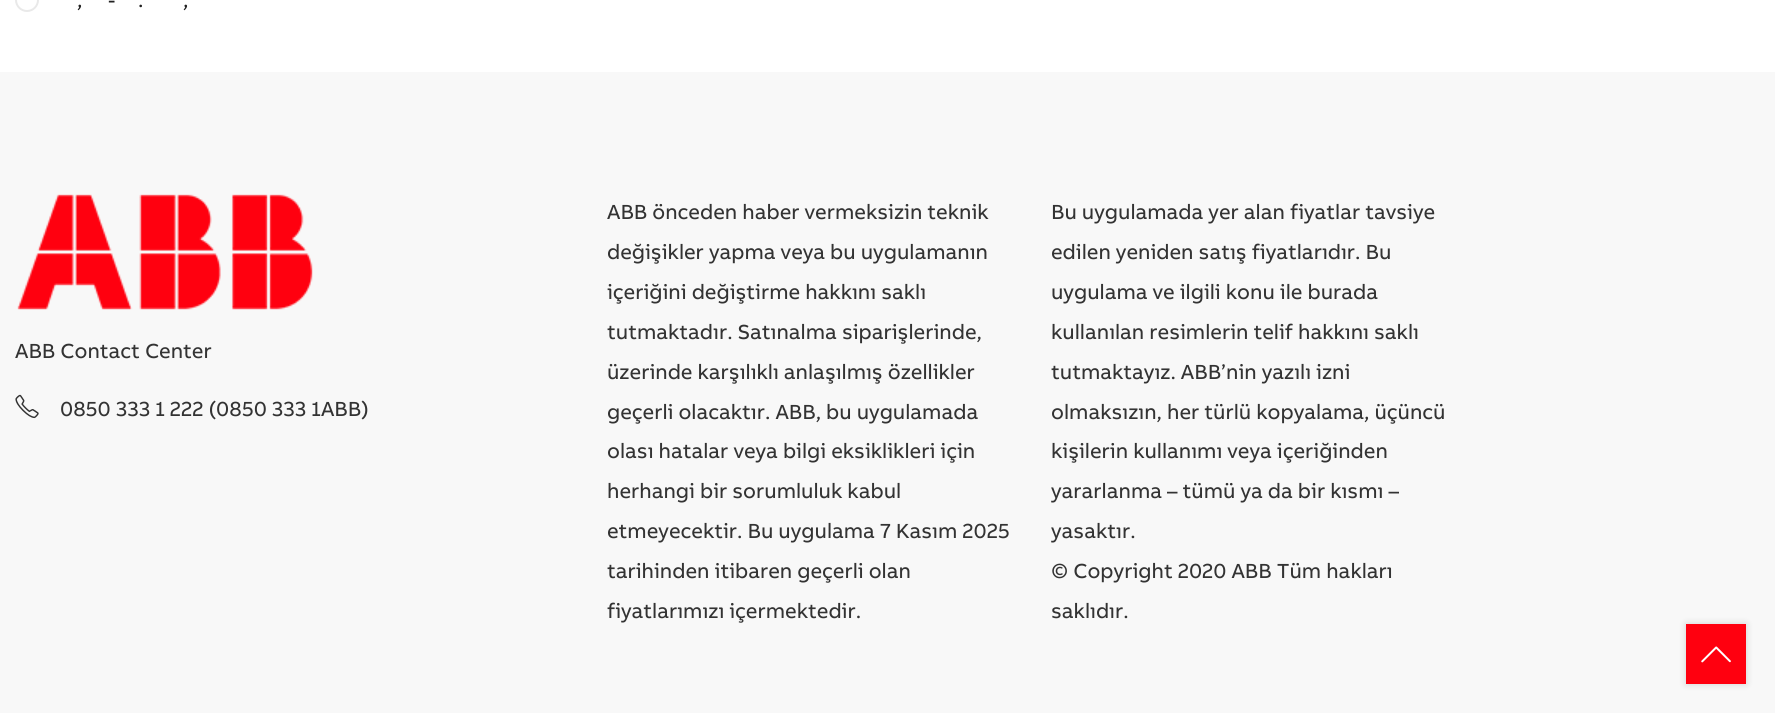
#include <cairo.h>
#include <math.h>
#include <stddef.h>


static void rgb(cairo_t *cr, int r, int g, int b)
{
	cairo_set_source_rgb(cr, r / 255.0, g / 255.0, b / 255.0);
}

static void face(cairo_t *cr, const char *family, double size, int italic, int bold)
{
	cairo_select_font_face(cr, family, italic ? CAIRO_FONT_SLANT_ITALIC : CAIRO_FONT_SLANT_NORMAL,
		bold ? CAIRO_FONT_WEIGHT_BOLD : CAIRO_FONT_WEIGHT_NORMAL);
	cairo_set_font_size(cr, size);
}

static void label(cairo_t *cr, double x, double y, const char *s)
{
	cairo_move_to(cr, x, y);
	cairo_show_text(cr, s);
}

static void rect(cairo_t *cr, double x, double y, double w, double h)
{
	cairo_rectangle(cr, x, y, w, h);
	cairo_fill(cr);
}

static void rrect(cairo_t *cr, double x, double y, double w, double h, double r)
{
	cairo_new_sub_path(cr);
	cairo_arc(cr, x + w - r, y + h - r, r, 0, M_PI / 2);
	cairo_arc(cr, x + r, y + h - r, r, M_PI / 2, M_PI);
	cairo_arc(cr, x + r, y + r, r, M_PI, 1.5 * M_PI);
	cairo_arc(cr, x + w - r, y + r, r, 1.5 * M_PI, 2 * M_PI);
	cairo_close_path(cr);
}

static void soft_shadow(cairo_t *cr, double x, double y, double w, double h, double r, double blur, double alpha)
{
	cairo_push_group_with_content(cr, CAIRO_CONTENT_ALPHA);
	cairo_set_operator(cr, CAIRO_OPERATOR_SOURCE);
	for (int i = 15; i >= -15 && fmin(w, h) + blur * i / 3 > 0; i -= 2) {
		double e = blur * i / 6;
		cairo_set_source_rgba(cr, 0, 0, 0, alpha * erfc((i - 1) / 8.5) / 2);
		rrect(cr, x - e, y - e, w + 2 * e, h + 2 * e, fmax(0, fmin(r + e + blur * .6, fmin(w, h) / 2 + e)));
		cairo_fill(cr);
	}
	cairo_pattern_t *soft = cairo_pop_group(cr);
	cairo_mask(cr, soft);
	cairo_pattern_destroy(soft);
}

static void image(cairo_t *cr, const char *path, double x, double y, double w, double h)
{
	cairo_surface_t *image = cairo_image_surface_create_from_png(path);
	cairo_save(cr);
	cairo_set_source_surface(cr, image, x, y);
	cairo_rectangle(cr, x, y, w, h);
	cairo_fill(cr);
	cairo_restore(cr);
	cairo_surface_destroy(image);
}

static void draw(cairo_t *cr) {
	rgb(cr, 255, 255, 255);
	cairo_paint(cr);
	cairo_arc(cr, 27, 0, 11, 0, 2 * M_PI);
	rgb(cr, 233, 233, 233);
	cairo_stroke(cr);
	face(cr, "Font", 21, 0, 0);
	rgb(cr, 33, 33, 33);
	label(cr, 108, 7, "-");
	label(cr, 77, 7, ",");
	label(cr, 138, 7, ".");
	label(cr, 183, 7, ",");
	rgb(cr, 248, 248, 248);
	rect(cr, 0, 72, 1775, 641);
	image(cr, "image0.png", 17, 194, 296, 116);
	rgb(cr, 51, 51, 51);
	label(cr, 15, 358, "ABB Contact Center");
	image(cr, "image1.png", 15, 394, 24, 25);
	label(cr, 60, 416, "0850 333 1 222 (0850 333 1ABB)");
	label(cr, 607, 219, "ABB önceden haber vermeksizin teknik");
	label(cr, 607, 259, "değişikler yapma veya bu uygulamanın");
	label(cr, 607, 299, "içeriğini değiştirme hakkını saklı");
	label(cr, 607, 339, "tutmaktadır. Satınalma siparişlerinde,");
	label(cr, 607, 379, "üzerinde karşılıklı anlaşılmış özellikler");
	label(cr, 607, 419, "geçerli olacaktır. ABB, bu uygulamada");
	label(cr, 607, 458, "olası hatalar veya bilgi eksiklikleri için");
	label(cr, 607, 498, "herhangi bir sorumluluk kabul");
	label(cr, 607, 538, "etmeyecektir. Bu uygulama 7 Kasım 2025");
	label(cr, 607, 578, "tarihinden itibaren geçerli olan");
	label(cr, 607, 618, "fiyatlarımızı içermektedir.");
	label(cr, 1051, 219, "Bu uygulamada yer alan fiyatlar tavsiye");
	label(cr, 1051, 259, "edilen yeniden satış fiyatlarıdır. Bu");
	label(cr, 1051, 299, "uygulama ve ilgili konu ile burada");
	label(cr, 1051, 339, "kullanılan resimlerin telif hakkını saklı");
	label(cr, 1051, 379, "tutmaktayız. ABB’nin yazılı izni");
	label(cr, 1051, 419, "olmaksızın, her türlü kopyalama, üçüncü");
	label(cr, 1051, 458, "kişilerin kullanımı veya içeriğinden");
	label(cr, 1051, 498, "yararlanma – tümü ya da bir kısmı –");
	label(cr, 1051, 538, "yasaktır.");
	label(cr, 1051, 578, "© Copyright 2020 ABB Tüm hakları");
	label(cr, 1051, 618, "saklıdır.");
	rgb(cr, 0, 0, 0);
	soft_shadow(cr, 1686, 624, 60, 60, 0, 4, 0.15);
	rgb(cr, 255, 0, 15);
	rect(cr, 1686, 624, 60, 60);
	image(cr, "image2.png", 1701, 646, 30, 17);
}

int main(void) {
	cairo_surface_t *surface = cairo_image_surface_create(CAIRO_FORMAT_RGB24, 1775, 713);
	cairo_t *cr = cairo_create(surface);
	cairo_font_options_t *options = cairo_font_options_create();
	cairo_font_options_set_hint_metrics(options, CAIRO_HINT_METRICS_OFF);
	cairo_font_options_set_hint_style(options, CAIRO_HINT_STYLE_NONE);
	cairo_set_font_options(cr, options);
	cairo_set_miter_limit(cr, 4);
	draw(cr);
	cairo_surface_write_to_png(surface, "render.png");
	cairo_font_options_destroy(options);
	cairo_destroy(cr);
	cairo_surface_destroy(surface);
	return 0;
}
